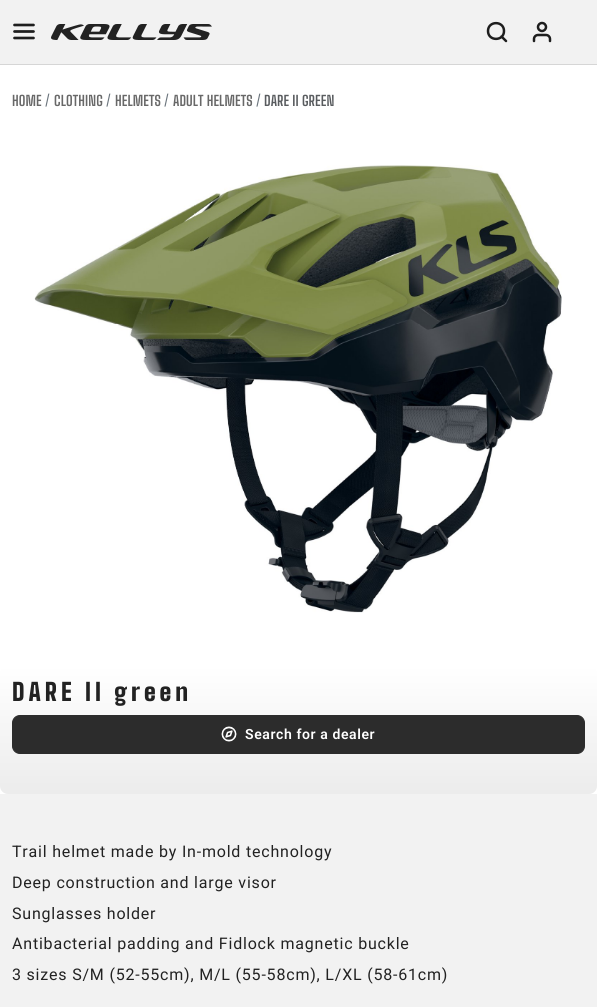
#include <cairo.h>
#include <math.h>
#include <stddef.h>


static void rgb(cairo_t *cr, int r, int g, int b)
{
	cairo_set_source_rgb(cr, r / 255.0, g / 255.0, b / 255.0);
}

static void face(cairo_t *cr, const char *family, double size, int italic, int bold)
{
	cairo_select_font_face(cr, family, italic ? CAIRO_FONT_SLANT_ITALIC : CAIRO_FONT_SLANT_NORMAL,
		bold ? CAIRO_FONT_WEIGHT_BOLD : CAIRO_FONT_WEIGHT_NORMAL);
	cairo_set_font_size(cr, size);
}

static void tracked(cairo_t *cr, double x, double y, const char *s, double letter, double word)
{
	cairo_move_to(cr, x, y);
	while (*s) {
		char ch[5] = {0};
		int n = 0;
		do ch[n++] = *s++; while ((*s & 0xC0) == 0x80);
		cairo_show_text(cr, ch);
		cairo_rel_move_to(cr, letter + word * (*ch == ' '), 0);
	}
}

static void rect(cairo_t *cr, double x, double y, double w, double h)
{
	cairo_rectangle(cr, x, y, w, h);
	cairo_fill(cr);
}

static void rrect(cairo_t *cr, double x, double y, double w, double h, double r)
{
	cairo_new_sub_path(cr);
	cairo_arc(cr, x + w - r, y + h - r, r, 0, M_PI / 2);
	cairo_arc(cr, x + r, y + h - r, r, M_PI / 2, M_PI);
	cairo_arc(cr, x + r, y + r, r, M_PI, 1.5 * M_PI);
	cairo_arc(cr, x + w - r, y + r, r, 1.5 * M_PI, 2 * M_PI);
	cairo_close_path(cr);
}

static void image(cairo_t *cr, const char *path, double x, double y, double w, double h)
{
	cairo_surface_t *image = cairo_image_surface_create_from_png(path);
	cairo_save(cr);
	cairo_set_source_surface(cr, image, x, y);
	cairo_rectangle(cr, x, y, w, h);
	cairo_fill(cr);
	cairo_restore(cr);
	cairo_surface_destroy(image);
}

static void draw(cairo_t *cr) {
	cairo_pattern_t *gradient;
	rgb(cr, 242, 242, 242);
	cairo_paint(cr);
	cairo_new_path(cr);
	cairo_move_to(cr, 14.5, 31.5);
	cairo_line_to(cr, 33.5, 31.5);
	cairo_move_to(cr, 14.5, 25);
	cairo_line_to(cr, 33.5, 25);
	cairo_move_to(cr, 14.5, 38);
	cairo_line_to(cr, 33.5, 38);
	rgb(cr, 30, 30, 30);
	cairo_set_line_width(cr, 2.7);
	cairo_set_line_cap(cr, CAIRO_LINE_CAP_ROUND);
	cairo_set_line_join(cr, CAIRO_LINE_JOIN_ROUND);
	cairo_stroke(cr);
	image(cr, "image0.png", 51, 24, 161, 16);
	cairo_new_path(cr);
	cairo_move_to(cr, 506, 41);
	cairo_line_to(cr, 501.5, 36.5);
	cairo_move_to(cr, 504, 31);
	cairo_curve_to(cr, 504, 41.5, 488, 41.5, 488, 31);
	cairo_curve_to(cr, 488, 20.5, 504, 20.5, 504, 31);
	cairo_close_path(cr);
	cairo_set_line_width(cr, 2.5);
	cairo_stroke(cr);
	image(cr, "image1.png", 532, 21, 20, 22);
	rgb(cr, 214, 214, 214);
	rect(cr, 0, 64, 597, 1);
	rgb(cr, 255, 255, 255);
	rect(cr, 0, 65, 597, 729);
	face(cr, "Big Shoulders Text", 14, 0, 1);
	rgb(cr, 104, 104, 104);
	tracked(cr, 12, 106, "HOME", 0.1, 0);
	face(cr, "Big Shoulders Text Medium", 13, 0, 0);
	rgb(cr, 108, 117, 125);
	tracked(cr, 45, 104, "/", 0.1, 0);
	face(cr, "Big Shoulders Text", 14, 0, 1);
	rgb(cr, 104, 104, 104);
	tracked(cr, 54, 106, "CLOTHING", 0.1, 0);
	face(cr, "Big Shoulders Text Medium", 13, 0, 0);
	rgb(cr, 108, 117, 125);
	tracked(cr, 106, 104, "/", 0.1, 0);
	face(cr, "Big Shoulders Text", 14, 0, 1);
	rgb(cr, 104, 104, 104);
	tracked(cr, 115, 106, "HELMETS", 0.1, 0);
	face(cr, "Big Shoulders Text Medium", 13, 0, 0);
	rgb(cr, 108, 117, 125);
	tracked(cr, 164, 104, "/", 0.1, 0);
	face(cr, "Big Shoulders Text", 14, 0, 1);
	rgb(cr, 104, 104, 104);
	tracked(cr, 173, 106, "ADULT HELMETS", 0.1, 0);
	face(cr, "Big Shoulders Text Medium", 13, 0, 0);
	rgb(cr, 108, 117, 125);
	tracked(cr, 256, 104, "/", 0.1, 0);
	face(cr, "Big Shoulders Text", 14, 0, 1);
	rgb(cr, 89, 92, 95);
	tracked(cr, 264, 106, "DARE II GREEN", 0.1, 0);
	image(cr, "image2.png", 34, 165, 528, 448);
	gradient = cairo_pattern_create_linear(299, 666, 299, 794);
	cairo_pattern_add_color_stop_rgba(gradient, 0, 1, 1, 1, 1);
	cairo_pattern_add_color_stop_rgba(gradient, 1, 0.925, 0.925, 0.925, 1);
	cairo_set_source(cr, gradient);
	cairo_pattern_destroy(gradient);
	rrect(cr, 0, 666, 597, 128, 8);
	cairo_fill(cr);
	face(cr, "Big Shoulders Text Black", 24, 0, 0);
	rgb(cr, 34, 34, 34);
	tracked(cr, 12, 701, "DARE II green", 4, 0);
	rgb(cr, 44, 44, 44);
	rrect(cr, 12.5, 715.5, 572, 38, 7.5);
	cairo_fill_preserve(cr);
	cairo_set_line_width(cr, 1);
	cairo_set_line_cap(cr, CAIRO_LINE_CAP_BUTT);
	cairo_set_line_join(cr, CAIRO_LINE_JOIN_MITER);
	cairo_stroke(cr);
	image(cr, "image3.png", 221, 726, 16, 16);
	face(cr, "Roboto SemiBold", 14, 0, 0);
	rgb(cr, 255, 255, 255);
	tracked(cr, 245, 739, "Search for a dealer", 0.6, 0);
	face(cr, "Roboto", 16, 0, 0);
	rgb(cr, 34, 34, 34);
	tracked(cr, 12, 857, "Trail helmet made by In-mold technology", 0.8, 0);
	tracked(cr, 12, 888, "Deep construction and large visor", 0.8, 0);
	tracked(cr, 12, 919, "Sunglasses holder", 0.8, 0);
	tracked(cr, 12, 949, "Antibacterial padding and Fidlock magnetic buckle", 0.8, 0);
	tracked(cr, 12, 980, "3 sizes S/M (52-55cm), M/L (55-58cm), L/XL (58-61cm)", 0.8, 0);
}

int main(void) {
	cairo_surface_t *surface = cairo_image_surface_create(CAIRO_FORMAT_RGB24, 597, 1007);
	cairo_t *cr = cairo_create(surface);
	cairo_font_options_t *options = cairo_font_options_create();
	cairo_font_options_set_hint_metrics(options, CAIRO_HINT_METRICS_OFF);
	cairo_font_options_set_hint_style(options, CAIRO_HINT_STYLE_NONE);
	cairo_set_font_options(cr, options);
	cairo_set_miter_limit(cr, 4);
	draw(cr);
	cairo_surface_write_to_png(surface, "render.png");
	cairo_font_options_destroy(options);
	cairo_destroy(cr);
	cairo_surface_destroy(surface);
	return 0;
}
